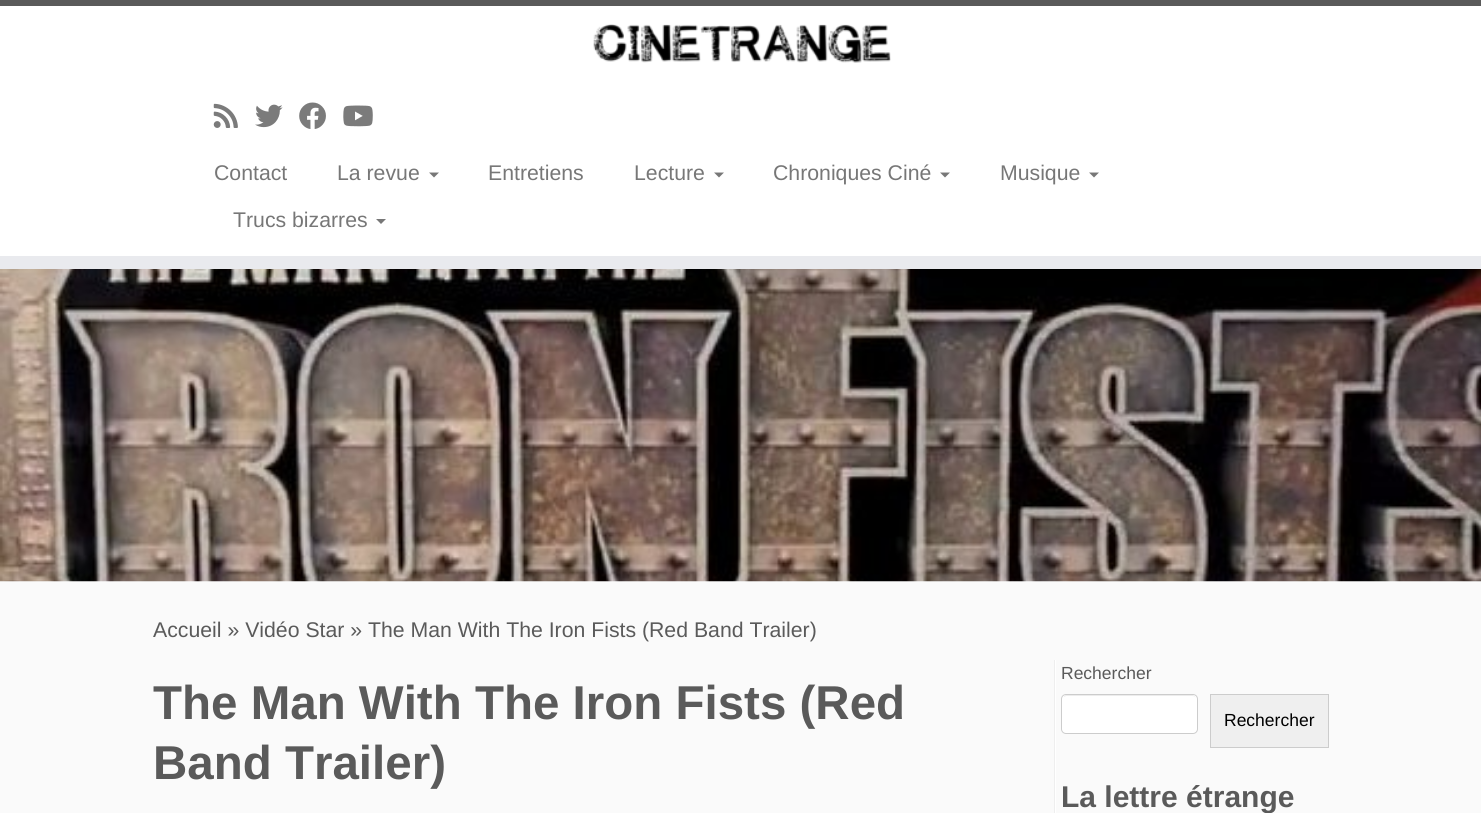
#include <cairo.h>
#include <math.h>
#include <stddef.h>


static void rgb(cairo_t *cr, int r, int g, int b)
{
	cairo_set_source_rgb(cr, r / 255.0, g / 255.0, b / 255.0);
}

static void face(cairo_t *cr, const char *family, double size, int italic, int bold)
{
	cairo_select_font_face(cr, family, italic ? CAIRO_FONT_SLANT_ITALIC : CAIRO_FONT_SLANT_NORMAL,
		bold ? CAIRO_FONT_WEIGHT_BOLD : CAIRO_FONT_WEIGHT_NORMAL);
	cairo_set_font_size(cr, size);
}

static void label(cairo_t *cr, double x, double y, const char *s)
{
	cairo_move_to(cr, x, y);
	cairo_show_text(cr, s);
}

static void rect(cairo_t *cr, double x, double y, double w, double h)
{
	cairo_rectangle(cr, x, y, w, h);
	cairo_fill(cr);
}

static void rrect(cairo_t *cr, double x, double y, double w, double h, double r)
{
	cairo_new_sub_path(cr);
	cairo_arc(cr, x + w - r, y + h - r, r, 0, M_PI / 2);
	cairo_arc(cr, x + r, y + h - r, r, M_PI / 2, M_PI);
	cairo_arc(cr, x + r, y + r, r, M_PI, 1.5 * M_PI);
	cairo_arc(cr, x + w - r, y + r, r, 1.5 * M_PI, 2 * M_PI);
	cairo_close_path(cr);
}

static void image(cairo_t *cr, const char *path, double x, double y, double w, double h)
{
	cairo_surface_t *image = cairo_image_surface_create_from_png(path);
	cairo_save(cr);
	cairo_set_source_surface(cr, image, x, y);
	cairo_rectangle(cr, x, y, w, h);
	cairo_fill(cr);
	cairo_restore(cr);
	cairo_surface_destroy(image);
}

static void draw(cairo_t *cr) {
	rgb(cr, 250, 250, 250);
	cairo_paint(cr);
	rgb(cr, 255, 255, 255);
	rect(cr, 0, 6, 1481, 250);
	rgb(cr, 90, 90, 90);
	rect(cr, 0, 0, 1481, 6);
	rgb(cr, 233, 234, 238);
	rect(cr, 0, 256, 1481, 13);
	image(cr, "image0.png", 593, 24, 298, 39);
	image(cr, "image1.png", 213, 103, 25, 25);
	image(cr, "image2.png", 255, 104, 28, 24);
	image(cr, "image3.png", 299, 102, 27, 27);
	image(cr, "image4.png", 343, 105, 30, 22);
	face(cr, "Liberation Sans", 21.25, 0, 0);
	rgb(cr, 119, 119, 119);
	label(cr, 214, 180, "Contact");
	label(cr, 337, 180, "La revue");
	cairo_new_path(cr);
	cairo_move_to(cr, 429, 172.5);
	cairo_line_to(cr, 439, 172.5);
	cairo_line_to(cr, 434, 177.5);
	cairo_close_path(cr);
	cairo_fill(cr);
	label(cr, 488, 180, "Entretiens");
	label(cr, 634, 180, "Lecture");
	cairo_new_path(cr);
	cairo_move_to(cr, 714, 172.5);
	cairo_line_to(cr, 724, 172.5);
	cairo_line_to(cr, 719, 177.5);
	cairo_close_path(cr);
	cairo_fill(cr);
	label(cr, 773, 180, "Chroniques Ciné");
	cairo_new_path(cr);
	cairo_move_to(cr, 940, 172.5);
	cairo_line_to(cr, 950, 172.5);
	cairo_line_to(cr, 945, 177.5);
	cairo_close_path(cr);
	cairo_fill(cr);
	label(cr, 1000, 180, "Musique");
	cairo_new_path(cr);
	cairo_move_to(cr, 1089, 172.5);
	cairo_line_to(cr, 1099, 172.5);
	cairo_line_to(cr, 1094, 177.5);
	cairo_close_path(cr);
	cairo_fill(cr);
	label(cr, 233, 227, "Trucs bizarres");
	cairo_new_path(cr);
	cairo_move_to(cr, 376, 219);
	cairo_line_to(cr, 386, 219);
	cairo_line_to(cr, 381, 224);
	cairo_close_path(cr);
	cairo_fill(cr);
	image(cr, "image5.png", 0, 269, 1481, 313);
	rgb(cr, 90, 90, 90);
	label(cr, 153, 637, "Accueil » Vidéo Star » The Man With The Iron Fists (Red Band Trailer)");
	face(cr, "Liberation Sans", 47.5, 0, 1);
	label(cr, 153, 719, "The Man With The Iron Fists (Red");
	label(cr, 153, 779, "Band Trailer)");
	rgb(cr, 238, 238, 238);
	rect(cr, 1054, 660, 1, 153);
	rgb(cr, 255, 255, 255);
	rect(cr, 1055, 660, 1, 153);
	face(cr, "Liberation Sans", 17.5, 0, 0);
	rgb(cr, 90, 90, 90);
	label(cr, 1061, 679, "Rechercher");
	rgb(cr, 255, 255, 255);
	rrect(cr, 1061, 694, 137, 40, 5);
	cairo_fill(cr);
	rgb(cr, 236, 236, 236);
	cairo_new_path(cr);
	cairo_move_to(cr, 1066, 696);
	cairo_line_to(cr, 1192, 696);
	cairo_curve_to(cr, 1195, 696, 1196, 698, 1196, 700);
	cairo_curve_to(cr, 1196, 698, 1195, 696, 1193, 695);
	cairo_line_to(cr, 1066, 695);
	cairo_curve_to(cr, 1065, 695, 1064, 696, 1064, 697);
	cairo_close_path(cr);
	cairo_fill(cr);
	rrect(cr, 1061.5, 694.5, 136, 39, 4.5);
	rgb(cr, 204, 204, 204);
	cairo_set_line_width(cr, 1);
	cairo_stroke(cr);
	rgb(cr, 239, 239, 239);
	cairo_rectangle(cr, 1210.5, 694.5, 118, 53);
	cairo_fill_preserve(cr);
	rgb(cr, 204, 204, 204);
	cairo_stroke(cr);
	rgb(cr, 0, 0, 0);
	label(cr, 1224, 726, "Rechercher");
	face(cr, "Liberation Sans", 30, 0, 1);
	rgb(cr, 90, 90, 90);
	label(cr, 1061, 807, "La lettre étrange");
}

int main(void) {
	cairo_surface_t *surface = cairo_image_surface_create(CAIRO_FORMAT_RGB24, 1481, 813);
	cairo_t *cr = cairo_create(surface);
	cairo_font_options_t *options = cairo_font_options_create();
	cairo_font_options_set_hint_metrics(options, CAIRO_HINT_METRICS_OFF);
	cairo_font_options_set_hint_style(options, CAIRO_HINT_STYLE_NONE);
	cairo_set_font_options(cr, options);
	cairo_set_miter_limit(cr, 4);
	draw(cr);
	cairo_surface_write_to_png(surface, "render.png");
	cairo_font_options_destroy(options);
	cairo_destroy(cr);
	cairo_surface_destroy(surface);
	return 0;
}
